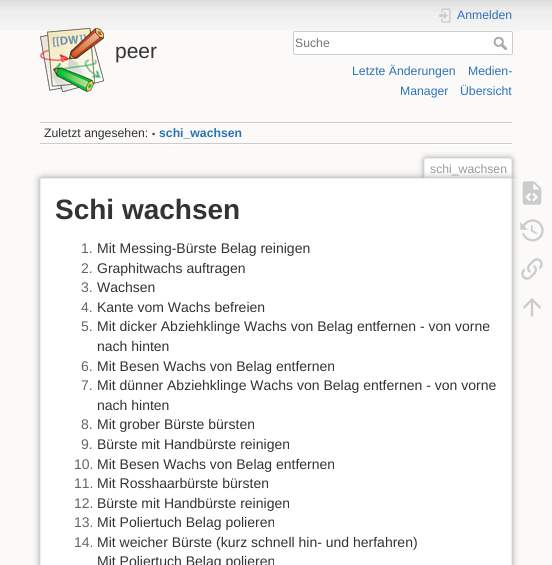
#include <cairo.h>
#include <math.h>
#include <stddef.h>


static void rgb(cairo_t *cr, int r, int g, int b)
{
	cairo_set_source_rgb(cr, r / 255.0, g / 255.0, b / 255.0);
}

static void face(cairo_t *cr, const char *family, double size, int italic, int bold)
{
	cairo_select_font_face(cr, family, italic ? CAIRO_FONT_SLANT_ITALIC : CAIRO_FONT_SLANT_NORMAL,
		bold ? CAIRO_FONT_WEIGHT_BOLD : CAIRO_FONT_WEIGHT_NORMAL);
	cairo_set_font_size(cr, size);
}

static void label(cairo_t *cr, double x, double y, const char *s)
{
	cairo_move_to(cr, x, y);
	cairo_show_text(cr, s);
}

static void rect(cairo_t *cr, double x, double y, double w, double h)
{
	cairo_rectangle(cr, x, y, w, h);
	cairo_fill(cr);
}

static void rrect(cairo_t *cr, double x, double y, double w, double h, double r)
{
	cairo_new_sub_path(cr);
	cairo_arc(cr, x + w - r, y + h - r, r, 0, M_PI / 2);
	cairo_arc(cr, x + r, y + h - r, r, M_PI / 2, M_PI);
	cairo_arc(cr, x + r, y + r, r, M_PI, 1.5 * M_PI);
	cairo_arc(cr, x + w - r, y + r, r, 1.5 * M_PI, 2 * M_PI);
	cairo_close_path(cr);
}

static void soft_shadow(cairo_t *cr, double x, double y, double w, double h, double r, double blur, double alpha)
{
	cairo_push_group_with_content(cr, CAIRO_CONTENT_ALPHA);
	cairo_set_operator(cr, CAIRO_OPERATOR_SOURCE);
	for (int i = 15; i >= -15 && fmin(w, h) + blur * i / 3 > 0; i -= 2) {
		double e = blur * i / 6;
		cairo_set_source_rgba(cr, 0, 0, 0, alpha * erfc((i - 1) / 8.5) / 2);
		rrect(cr, x - e, y - e, w + 2 * e, h + 2 * e, fmax(0, fmin(r + e + blur * .6, fmin(w, h) / 2 + e)));
		cairo_fill(cr);
	}
	cairo_pattern_t *soft = cairo_pop_group(cr);
	cairo_mask(cr, soft);
	cairo_pattern_destroy(soft);
}

static void image(cairo_t *cr, const char *path, double x, double y, double w, double h)
{
	cairo_surface_t *image = cairo_image_surface_create_from_png(path);
	cairo_save(cr);
	cairo_set_source_surface(cr, image, x, y);
	cairo_rectangle(cr, x, y, w, h);
	cairo_fill(cr);
	cairo_restore(cr);
	cairo_surface_destroy(image);
}

static void draw(cairo_t *cr) {
	rgb(cr, 251, 250, 249);
	cairo_paint(cr);
	image(cr, "image0.png", 0, 0, 552, 31);
	image(cr, "image1.png", 40, 28, 64, 64);
	face(cr, "Liberation Sans", 21, 0, 0);
	rgb(cr, 51, 51, 51);
	label(cr, 115, 58, "peer");
	image(cr, "image2.png", 439, 8, 12, 15);
	face(cr, "Liberation Sans", 12.25, 0, 0);
	rgb(cr, 43, 115, 183);
	label(cr, 457, 19, "Anmelden");
	rgb(cr, 255, 255, 255);
	rrect(cr, 293.5, 31.5, 219, 23, 1.5);
	cairo_fill_preserve(cr);
	rgb(cr, 204, 204, 204);
	cairo_set_line_width(cr, 1);
	cairo_stroke(cr);
	rgb(cr, 117, 117, 117);
	label(cr, 295, 47, "Suche");
	image(cr, "image3.png", 493, 36, 14, 14);
	rgb(cr, 43, 115, 183);
	label(cr, 352, 75, "Letzte Änderungen");
	label(cr, 468, 75, "Medien-");
	label(cr, 400, 95, "Manager");
	label(cr, 460, 95, "Übersicht");
	rgb(cr, 204, 204, 204);
	rect(cr, 40, 122, 472, 1);
	rgb(cr, 255, 255, 255);
	rect(cr, 40, 144, 472, 1);
	rect(cr, 40, 123, 472, 1);
	rgb(cr, 204, 204, 204);
	rect(cr, 40, 143, 472, 1);
	rgb(cr, 51, 51, 51);
	label(cr, 44, 137, "Zuletzt angesehen:");
	face(cr, "Liberation Sans", 9, 0, 0);
	label(cr, 152, 137, "•");
	face(cr, "Liberation Sans", 12.25, 0, 1);
	rgb(cr, 43, 115, 183);
	label(cr, 159, 137, "schi_wachsen");
	cairo_save(cr);
	cairo_rectangle(cr, 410, 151, 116, 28);
	cairo_clip(cr);
	rgb(cr, 153, 153, 153);
	soft_shadow(cr, 424, 158, 88, 21, 2, 3, 1);
	cairo_restore(cr);
	rgb(cr, 255, 255, 255);
	cairo_new_path(cr);
	cairo_move_to(cr, 426, 159);
	cairo_line_to(cr, 510, 159);
	cairo_curve_to(cr, 510.5, 159, 511, 159.5, 511, 160);
	cairo_line_to(cr, 511, 179);
	cairo_line_to(cr, 425, 179);
	cairo_line_to(cr, 425, 160);
	cairo_curve_to(cr, 425, 159.5, 425.5, 159, 426, 159);
	cairo_close_path(cr);
	cairo_fill(cr);
	rgb(cr, 238, 238, 238);
	rect(cr, 425, 158, 86, 1);
	rect(cr, 511, 159, 1, 20);
	rect(cr, 424, 159, 1, 20);
	face(cr, "Liberation Sans", 12.25, 0, 0);
	rgb(cr, 153, 153, 153);
	label(cr, 430, 173, "schi_wachsen");
	rgb(cr, 153, 153, 153);
	soft_shadow(cr, 40, 178, 472, 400, 2, 3.5, 1);
	rgb(cr, 255, 255, 255);
	rrect(cr, 40.5, 178.5, 471, 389, 1.5);
	cairo_fill_preserve(cr);
	rgb(cr, 238, 238, 238);
	cairo_stroke(cr);
	face(cr, "Liberation Sans", 28, 0, 1);
	rgb(cr, 51, 51, 51);
	label(cr, 55, 219, "Schi wachsen");
	face(cr, "Liberation Sans", 14, 0, 0);
	rgb(cr, 102, 102, 102);
	label(cr, 81, 253, "1.");
	rgb(cr, 51, 51, 51);
	label(cr, 97, 253, "Mit Messing-Bürste Belag reinigen");
	rgb(cr, 102, 102, 102);
	label(cr, 81, 273, "2.");
	rgb(cr, 51, 51, 51);
	label(cr, 97, 273, "Graphitwachs auftragen");
	rgb(cr, 102, 102, 102);
	label(cr, 81, 292, "3.");
	rgb(cr, 51, 51, 51);
	label(cr, 97, 292, "Wachsen");
	rgb(cr, 102, 102, 102);
	label(cr, 81, 312, "4.");
	rgb(cr, 51, 51, 51);
	label(cr, 97, 312, "Kante vom Wachs befreien");
	rgb(cr, 102, 102, 102);
	label(cr, 81, 331, "5.");
	rgb(cr, 51, 51, 51);
	label(cr, 97, 331, "Mit dicker Abziehklinge Wachs von Belag entfernen - von vorne");
	label(cr, 97, 351, "nach hinten");
	rgb(cr, 102, 102, 102);
	label(cr, 81, 371, "6.");
	rgb(cr, 51, 51, 51);
	label(cr, 97, 371, "Mit Besen Wachs von Belag entfernen");
	rgb(cr, 102, 102, 102);
	label(cr, 81, 390, "7.");
	rgb(cr, 51, 51, 51);
	label(cr, 97, 390, "Mit dünner Abziehklinge Wachs von Belag entfernen - von vorne");
	label(cr, 97, 410, "nach hinten");
	rgb(cr, 102, 102, 102);
	label(cr, 81, 429, "8.");
	rgb(cr, 51, 51, 51);
	label(cr, 97, 429, "Mit grober Bürste bürsten");
	rgb(cr, 102, 102, 102);
	label(cr, 81, 449, "9.");
	rgb(cr, 51, 51, 51);
	label(cr, 97, 449, "Bürste mit Handbürste reinigen");
	rgb(cr, 102, 102, 102);
	label(cr, 74, 469, "10.");
	rgb(cr, 51, 51, 51);
	label(cr, 97, 469, "Mit Besen Wachs von Belag entfernen");
	rgb(cr, 102, 102, 102);
	label(cr, 74, 488, "11.");
	rgb(cr, 51, 51, 51);
	label(cr, 97, 488, "Mit Rosshaarbürste bürsten");
	rgb(cr, 102, 102, 102);
	label(cr, 74, 508, "12.");
	rgb(cr, 51, 51, 51);
	label(cr, 97, 508, "Bürste mit Handbürste reinigen");
	rgb(cr, 102, 102, 102);
	label(cr, 74, 527, "13.");
	rgb(cr, 51, 51, 51);
	label(cr, 97, 527, "Mit Poliertuch Belag polieren");
	rgb(cr, 102, 102, 102);
	label(cr, 74, 547, "14.");
	rgb(cr, 51, 51, 51);
	label(cr, 97, 547, "Mit weicher Bürste (kurz schnell hin- und herfahren)");
	label(cr, 97, 566, "Mit Poliertuch Belag polieren");
	image(cr, "image4.png", 522, 181, 20, 24);
	image(cr, "image5.png", 520, 219, 24, 23);
	image(cr, "image6.png", 521, 258, 22, 22);
	image(cr, "image7.png", 523, 298, 18, 19);
}

int main(void) {
	cairo_surface_t *surface = cairo_image_surface_create(CAIRO_FORMAT_RGB24, 552, 565);
	cairo_t *cr = cairo_create(surface);
	cairo_font_options_t *options = cairo_font_options_create();
	cairo_font_options_set_hint_metrics(options, CAIRO_HINT_METRICS_OFF);
	cairo_font_options_set_hint_style(options, CAIRO_HINT_STYLE_NONE);
	cairo_set_font_options(cr, options);
	cairo_set_miter_limit(cr, 4);
	draw(cr);
	cairo_surface_write_to_png(surface, "render.png");
	cairo_font_options_destroy(options);
	cairo_destroy(cr);
	cairo_surface_destroy(surface);
	return 0;
}
